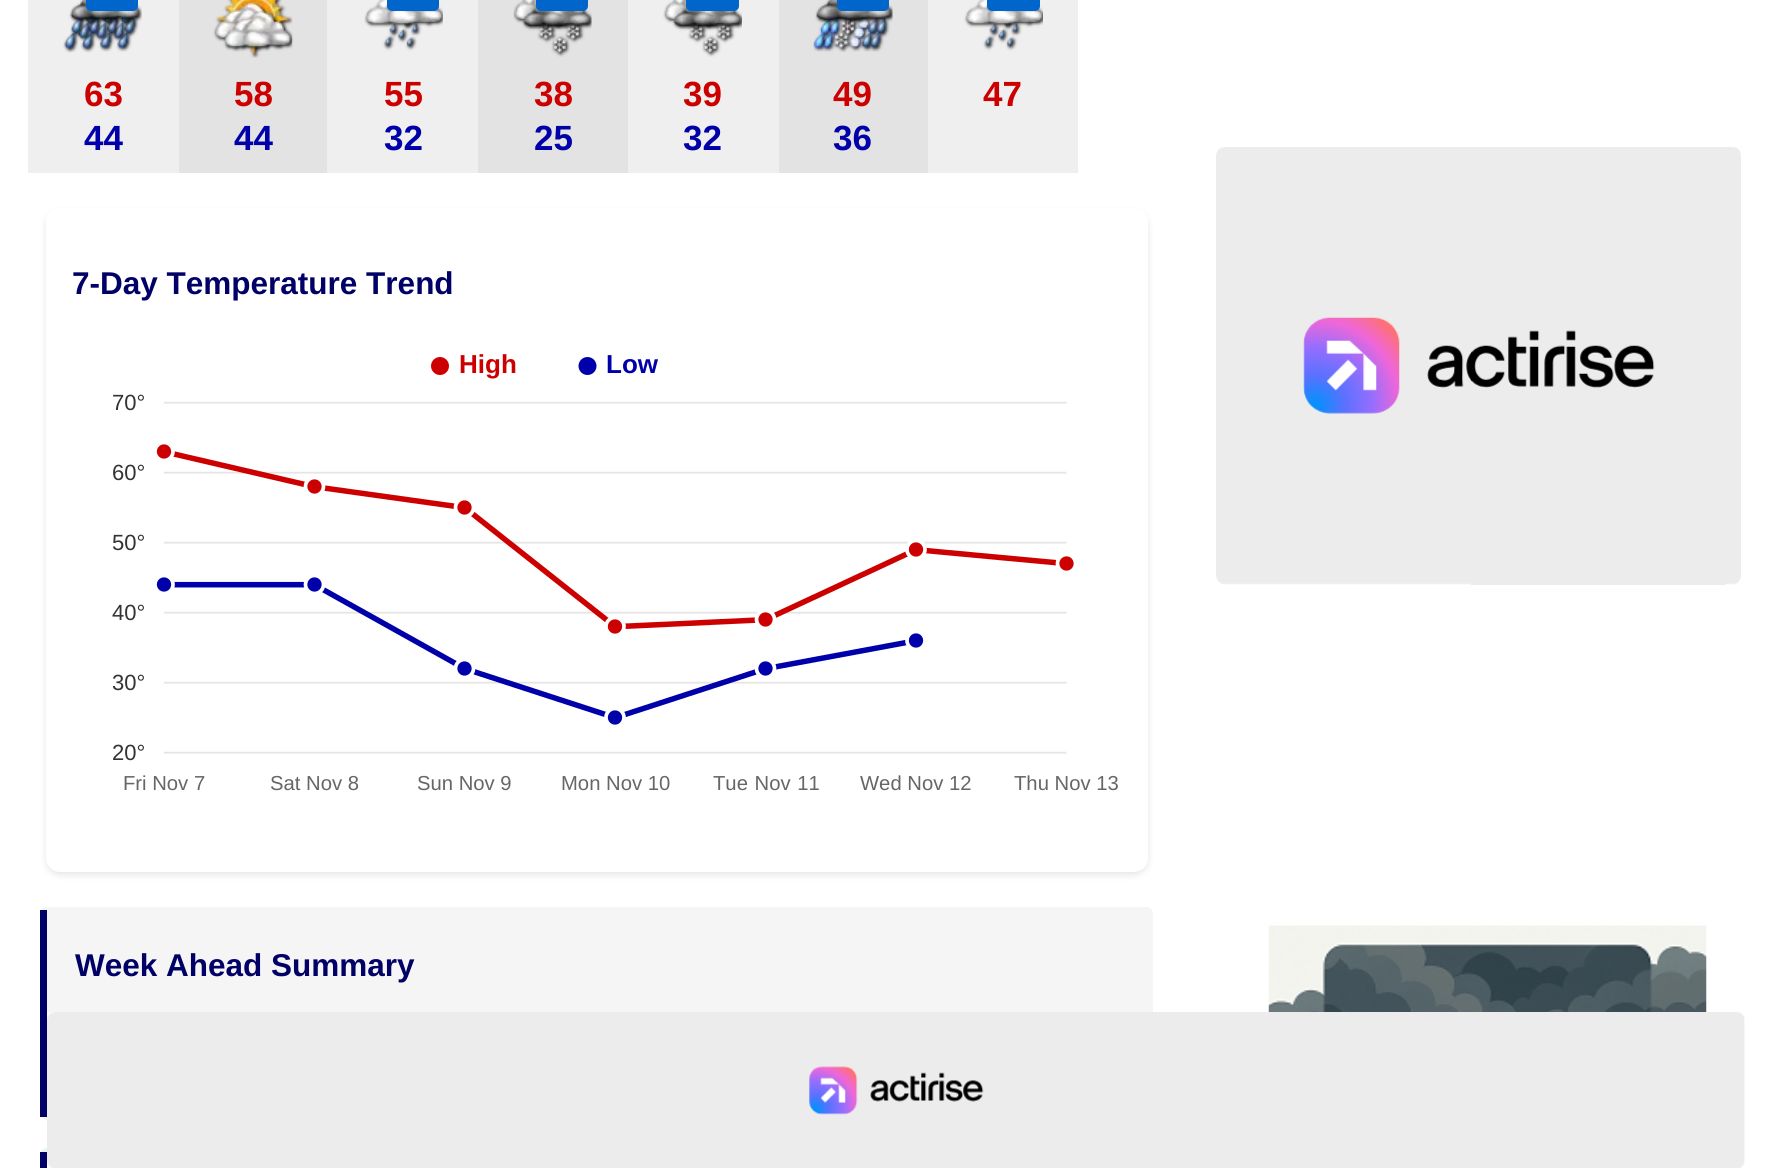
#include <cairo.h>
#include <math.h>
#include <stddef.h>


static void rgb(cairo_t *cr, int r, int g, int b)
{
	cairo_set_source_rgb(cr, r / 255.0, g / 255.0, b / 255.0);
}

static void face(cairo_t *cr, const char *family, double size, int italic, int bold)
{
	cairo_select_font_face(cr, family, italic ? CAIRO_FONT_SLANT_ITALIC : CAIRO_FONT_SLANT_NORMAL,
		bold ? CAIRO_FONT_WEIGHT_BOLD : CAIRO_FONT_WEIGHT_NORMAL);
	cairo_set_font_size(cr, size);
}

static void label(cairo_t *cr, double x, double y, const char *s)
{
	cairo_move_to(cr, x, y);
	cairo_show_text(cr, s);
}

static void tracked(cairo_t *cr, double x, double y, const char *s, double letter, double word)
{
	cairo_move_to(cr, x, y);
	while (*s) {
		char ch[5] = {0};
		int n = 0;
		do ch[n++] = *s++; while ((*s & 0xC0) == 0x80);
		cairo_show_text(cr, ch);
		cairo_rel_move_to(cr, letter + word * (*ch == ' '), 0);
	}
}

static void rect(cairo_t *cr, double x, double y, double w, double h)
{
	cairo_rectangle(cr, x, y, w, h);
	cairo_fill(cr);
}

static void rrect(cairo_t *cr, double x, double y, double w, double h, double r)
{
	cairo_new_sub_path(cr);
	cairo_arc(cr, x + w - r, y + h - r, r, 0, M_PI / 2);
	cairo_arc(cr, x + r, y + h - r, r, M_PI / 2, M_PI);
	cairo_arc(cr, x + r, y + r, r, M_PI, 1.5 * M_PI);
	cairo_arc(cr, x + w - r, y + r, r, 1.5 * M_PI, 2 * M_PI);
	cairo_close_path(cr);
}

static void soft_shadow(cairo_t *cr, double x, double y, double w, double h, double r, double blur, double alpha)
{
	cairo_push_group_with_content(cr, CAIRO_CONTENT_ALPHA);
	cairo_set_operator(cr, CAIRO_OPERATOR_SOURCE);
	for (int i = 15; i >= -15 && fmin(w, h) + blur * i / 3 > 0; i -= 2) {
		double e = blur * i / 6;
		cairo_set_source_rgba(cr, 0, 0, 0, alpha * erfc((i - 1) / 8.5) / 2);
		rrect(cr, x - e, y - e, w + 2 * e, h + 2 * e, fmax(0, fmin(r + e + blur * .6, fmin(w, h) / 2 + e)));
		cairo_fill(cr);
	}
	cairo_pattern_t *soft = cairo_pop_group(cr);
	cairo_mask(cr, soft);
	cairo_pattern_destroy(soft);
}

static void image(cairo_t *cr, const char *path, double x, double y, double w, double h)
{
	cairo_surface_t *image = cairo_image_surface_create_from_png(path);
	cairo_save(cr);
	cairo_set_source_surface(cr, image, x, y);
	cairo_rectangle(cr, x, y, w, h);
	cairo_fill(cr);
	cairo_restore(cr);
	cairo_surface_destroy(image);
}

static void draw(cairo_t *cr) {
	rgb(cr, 255, 255, 255);
	cairo_paint(cr);
	rgb(cr, 239, 239, 239);
	rect(cr, 28, 0, 151, 173);
	image(cr, "image0.png", 63, 0, 79, 53);
	rgb(cr, 0, 102, 204);
	rrect(cr, 86, -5, 52, 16, 5);
	cairo_fill(cr);
	face(cr, "Liberation Sans", 35, 0, 1);
	rgb(cr, 204, 0, 0);
	label(cr, 84, 106, "63");
	rgb(cr, 0, 0, 170);
	label(cr, 84, 150, "44");
	rgb(cr, 227, 227, 227);
	rect(cr, 179, 0, 148, 173);
	image(cr, "image1.png", 213, 0, 80, 58);
	rgb(cr, 204, 0, 0);
	label(cr, 234, 106, "58");
	rgb(cr, 0, 0, 170);
	label(cr, 234, 150, "44");
	rgb(cr, 239, 239, 239);
	rect(cr, 327, 0, 151, 173);
	image(cr, "image2.png", 364, 0, 79, 51);
	rgb(cr, 0, 102, 204);
	rrect(cr, 387, -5, 52, 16, 5);
	cairo_fill(cr);
	rgb(cr, 204, 0, 0);
	label(cr, 384, 106, "55");
	rgb(cr, 0, 0, 170);
	label(cr, 384, 150, "32");
	rgb(cr, 227, 227, 227);
	rect(cr, 478, 0, 150, 173);
	image(cr, "image3.png", 513, 0, 79, 57);
	rgb(cr, 0, 102, 204);
	rrect(cr, 536, -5, 52, 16, 5);
	cairo_fill(cr);
	rgb(cr, 204, 0, 0);
	label(cr, 534, 106, "38");
	rgb(cr, 0, 0, 170);
	label(cr, 534, 150, "25");
	rgb(cr, 239, 239, 239);
	rect(cr, 628, 0, 151, 173);
	image(cr, "image4.png", 663, 0, 79, 57);
	rgb(cr, 0, 102, 204);
	rrect(cr, 686, -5, 53, 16, 5);
	cairo_fill(cr);
	rgb(cr, 204, 0, 0);
	label(cr, 683, 106, "39");
	rgb(cr, 0, 0, 170);
	label(cr, 683, 150, "32");
	rgb(cr, 227, 227, 227);
	rect(cr, 779, 0, 149, 173);
	image(cr, "image5.png", 813, 0, 80, 52);
	rgb(cr, 0, 102, 204);
	rrect(cr, 837, -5, 52, 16, 5);
	cairo_fill(cr);
	rgb(cr, 204, 0, 0);
	label(cr, 833, 106, "49");
	rgb(cr, 0, 0, 170);
	label(cr, 833, 150, "36");
	rgb(cr, 239, 239, 239);
	rect(cr, 928, 0, 150, 173);
	image(cr, "image6.png", 964, 0, 79, 51);
	rgb(cr, 0, 102, 204);
	rrect(cr, 987, -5, 53, 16, 5);
	cairo_fill(cr);
	rgb(cr, 204, 0, 0);
	label(cr, 983, 106, "47");
	rgb(cr, 0, 0, 0);
	soft_shadow(cr, 46, 212, 1102, 663, 14, 3.5, 0.1);
	rgb(cr, 255, 255, 255);
	rrect(cr, 46, 208, 1102, 664, 14);
	cairo_fill(cr);
	face(cr, "Liberation Sans", 31.5, 0, 1);
	rgb(cr, 0, 0, 102);
	label(cr, 72, 294, "7-Day Temperature Trend");
	image(cr, "image7.png", 156, 357, 918, 397);
	face(cr, "Liberation Sans", 26, 0, 1);
	rgb(cr, 204, 0, 0);
	label(cr, 459, 373, "High");
	rgb(cr, 0, 0, 170);
	label(cr, 606, 373, "Low");
	face(cr, "Liberation Sans", 22, 0, 0);
	rgb(cr, 51, 51, 51);
	label(cr, 112, 410, "70°");
	label(cr, 112, 480, "60°");
	label(cr, 112, 550, "50°");
	label(cr, 112, 620, "40°");
	label(cr, 112, 690, "30°");
	label(cr, 112, 760, "20°");
	face(cr, "Liberation Sans", 20.25, 0, 0);
	rgb(cr, 102, 102, 102);
	label(cr, 123, 790, "Fri Nov 7");
	label(cr, 270, 790, "Sat Nov 8");
	label(cr, 417, 790, "Sun Nov 9");
	label(cr, 561, 790, "Mon Nov 10");
	tracked(cr, 713, 790, "Tue Nov 11", 0, 1);
	label(cr, 860, 790, "Wed Nov 12");
	label(cr, 1014, 790, "Thu Nov 13");
	rgb(cr, 245, 245, 245);
	rrect(cr, 40, 907, 1113, 213, 7);
	cairo_fill(cr);
	rgb(cr, 0, 0, 102);
	rect(cr, 40, 910, 7, 207);
	face(cr, "Liberation Sans", 31.5, 0, 1);
	label(cr, 75, 976, "Week Ahead Summary");
	rgb(cr, 232, 244, 248);
	rrect(cr, 40, 1148, 1113, 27, 7);
	cairo_fill(cr);
	rgb(cr, 0, 0, 102);
	rect(cr, 40, 1152, 7, 16);
	image(cr, "image8.png", 1216, 147, 525, 438);
	image(cr, "image9.png", 1268, 925, 439, 87);
	rgb(cr, 255, 255, 255);
	rect(cr, 47, 1012, 1106, 156);
	image(cr, "image10.png", 47, 1012, 1698, 156);
}

int main(void) {
	cairo_surface_t *surface = cairo_image_surface_create(CAIRO_FORMAT_RGB24, 1792, 1168);
	cairo_t *cr = cairo_create(surface);
	cairo_font_options_t *options = cairo_font_options_create();
	cairo_font_options_set_hint_metrics(options, CAIRO_HINT_METRICS_OFF);
	cairo_font_options_set_hint_style(options, CAIRO_HINT_STYLE_NONE);
	cairo_set_font_options(cr, options);
	cairo_set_miter_limit(cr, 4);
	draw(cr);
	cairo_surface_write_to_png(surface, "render.png");
	cairo_font_options_destroy(options);
	cairo_destroy(cr);
	cairo_surface_destroy(surface);
	return 0;
}
